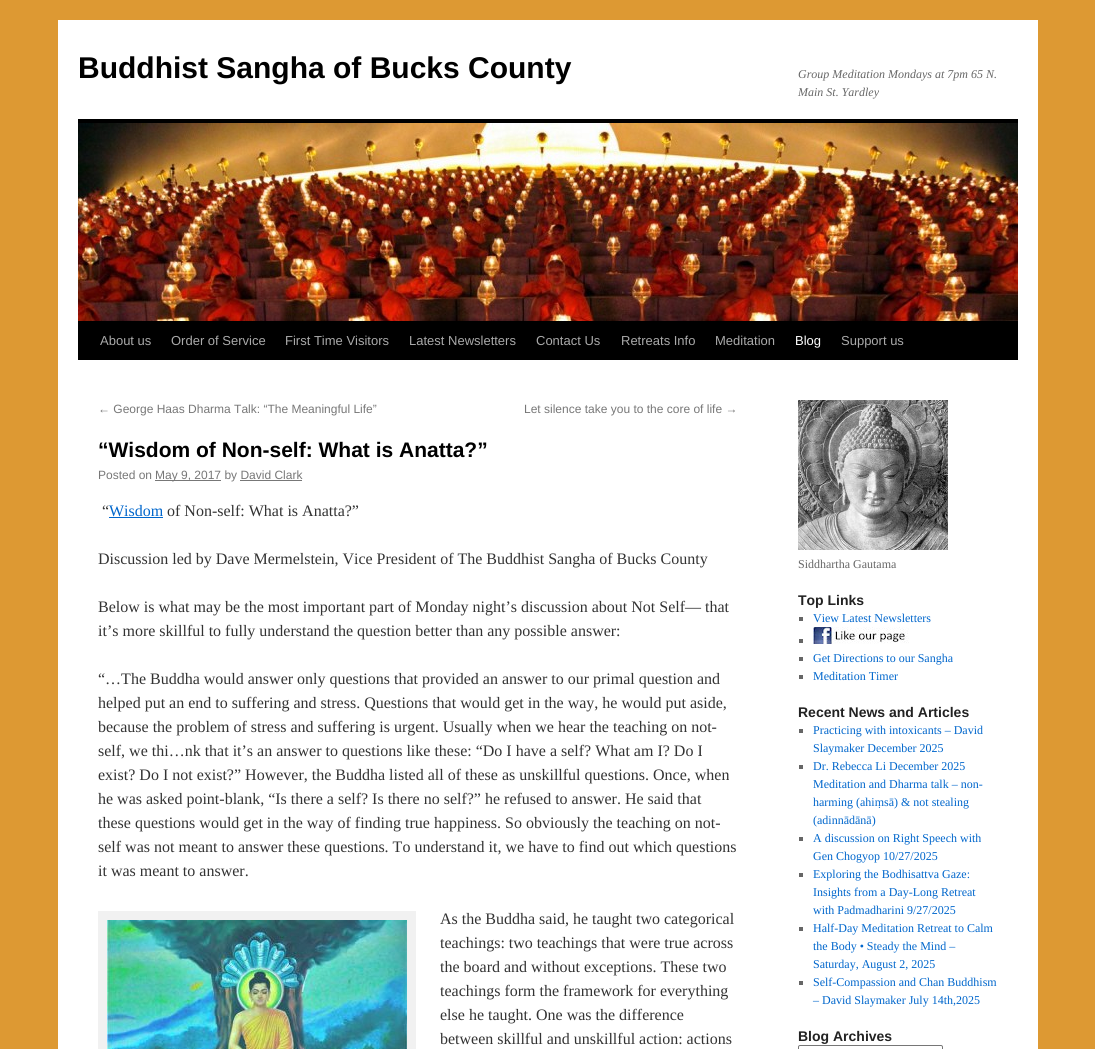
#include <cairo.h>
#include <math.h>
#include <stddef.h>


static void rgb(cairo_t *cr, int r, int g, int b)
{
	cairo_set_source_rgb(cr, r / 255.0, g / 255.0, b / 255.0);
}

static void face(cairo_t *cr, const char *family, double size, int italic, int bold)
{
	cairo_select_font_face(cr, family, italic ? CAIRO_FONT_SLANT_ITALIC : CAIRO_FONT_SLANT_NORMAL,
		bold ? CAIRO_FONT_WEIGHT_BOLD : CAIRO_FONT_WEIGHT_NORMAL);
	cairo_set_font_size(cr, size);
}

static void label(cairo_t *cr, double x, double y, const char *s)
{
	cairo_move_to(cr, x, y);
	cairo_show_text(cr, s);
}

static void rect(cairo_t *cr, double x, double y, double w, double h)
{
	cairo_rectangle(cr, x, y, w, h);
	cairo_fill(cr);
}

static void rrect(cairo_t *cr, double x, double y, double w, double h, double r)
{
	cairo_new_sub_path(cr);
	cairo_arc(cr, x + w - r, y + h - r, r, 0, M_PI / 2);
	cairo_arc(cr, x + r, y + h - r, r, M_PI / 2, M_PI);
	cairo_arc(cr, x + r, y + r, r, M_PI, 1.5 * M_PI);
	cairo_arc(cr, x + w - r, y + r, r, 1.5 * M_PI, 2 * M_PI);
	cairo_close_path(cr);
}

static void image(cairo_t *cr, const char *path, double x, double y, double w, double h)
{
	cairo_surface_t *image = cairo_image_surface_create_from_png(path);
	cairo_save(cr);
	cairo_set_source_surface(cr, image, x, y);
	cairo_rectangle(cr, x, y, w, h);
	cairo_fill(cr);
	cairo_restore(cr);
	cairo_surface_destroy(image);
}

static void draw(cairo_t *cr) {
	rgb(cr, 221, 153, 51);
	cairo_paint(cr);
	rgb(cr, 255, 255, 255);
	rect(cr, 58, 20, 980, 1029);
	face(cr, "Liberation Sans", 30, 0, 1);
	rgb(cr, 0, 0, 0);
	label(cr, 78, 78, "Buddhist Sangha of Bucks County");
	face(cr, "Liberation Serif", 12, 1, 0);
	rgb(cr, 102, 102, 102);
	label(cr, 798, 78, "Group Meditation Mondays at 7pm 65 N.");
	label(cr, 798, 96, "Main St. Yardley");
	rgb(cr, 0, 0, 0);
	rect(cr, 78, 119, 940, 4);
	rect(cr, 78, 321, 940, 39);
	image(cr, "image0.png", 78, 123, 940, 198);
	face(cr, "Liberation Sans", 13, 0, 0);
	rgb(cr, 170, 170, 170);
	label(cr, 100, 345, "About us");
	label(cr, 171, 345, "Order of Service");
	label(cr, 285, 345, "First Time Visitors");
	label(cr, 409, 345, "Latest Newsletters");
	label(cr, 536, 345, "Contact Us");
	label(cr, 621, 345, "Retreats Info");
	label(cr, 715, 345, "Meditation");
	rgb(cr, 255, 255, 255);
	label(cr, 795, 345, "Blog");
	rgb(cr, 170, 170, 170);
	label(cr, 841, 345, "Support us");
	face(cr, "Liberation Sans", 12, 0, 0);
	rgb(cr, 119, 119, 119);
	label(cr, 98, 413, "← George Haas Dharma Talk: “The Meaningful Life”");
	label(cr, 524, 413, "Let silence take you to the core of life →");
	face(cr, "Liberation Sans", 21, 0, 1);
	rgb(cr, 0, 0, 0);
	label(cr, 98, 457, "“Wisdom of Non-self: What is Anatta?”");
	face(cr, "Liberation Sans", 12, 0, 0);
	rgb(cr, 119, 119, 119);
	label(cr, 98, 479, "Posted on");
	rect(cr, 155, 480, 66, 1);
	label(cr, 155, 479, "May 9, 2017 by David Clark");
	rect(cr, 240, 480, 62, 1);
	face(cr, "Liberation Serif", 16, 0, 0);
	rgb(cr, 51, 51, 51);
	label(cr, 102, 516, "“");
	rgb(cr, 0, 102, 204);
	label(cr, 109, 516, "Wisdom");
	rect(cr, 109, 517, 54, 1);
	rgb(cr, 51, 51, 51);
	label(cr, 167, 516, "of Non-self: What is Anatta?”");
	label(cr, 98, 564, "Discussion led by Dave Mermelstein, Vice President of The Buddhist Sangha of Bucks County");
	label(cr, 98, 612, "Below is what may be the most important part of Monday night’s discussion about Not Self— that");
	label(cr, 98, 636, "it’s more skillful to fully understand the question better than any possible answer:");
	label(cr, 98, 684, "“…The Buddha would answer only questions that provided an answer to our primal question and");
	label(cr, 98, 708, "helped put an end to suffering and stress. Questions that would get in the way, he would put aside,");
	label(cr, 98, 732, "because the problem of stress and suffering is urgent. Usually when we hear the teaching on not-");
	label(cr, 98, 756, "self, we thi…nk that it’s an answer to questions like these: “Do I have a self? What am I? Do I");
	label(cr, 98, 780, "exist? Do I not exist?” However, the Buddha listed all of these as unskillful questions. Once, when");
	label(cr, 98, 804, "he was asked point-blank, “Is there a self? Is there no self?” he refused to answer. He said that");
	label(cr, 98, 828, "these questions would get in the way of finding true happiness. So obviously the teaching on not-");
	label(cr, 98, 852, "self was not meant to answer these questions. To understand it, we have to find out which questions");
	label(cr, 98, 876, "it was meant to answer.");
	rgb(cr, 241, 241, 241);
	rect(cr, 98, 911, 318, 138);
	image(cr, "image1.png", 107, 920, 300, 129);
	rgb(cr, 51, 51, 51);
	label(cr, 440, 924, "As the Buddha said, he taught two categorical");
	label(cr, 440, 948, "teachings: two teachings that were true across");
	label(cr, 440, 972, "the board and without exceptions. These two");
	label(cr, 440, 996, "teachings form the framework for everything");
	label(cr, 440, 1020, "else he taught. One was the difference");
	label(cr, 440, 1044, "between skillful and unskillful action: actions");
	image(cr, "image2.png", 798, 400, 150, 150);
	face(cr, "Liberation Serif", 12, 0, 0);
	rgb(cr, 102, 102, 102);
	label(cr, 798, 568, "Siddhartha Gautama");
	face(cr, "Liberation Sans", 14, 0, 1);
	rgb(cr, 34, 34, 34);
	label(cr, 798, 605, "Top Links");
	rgb(cr, 102, 102, 102);
	rect(cr, 799, 617, 4, 4);
	face(cr, "Liberation Serif", 12, 0, 0);
	rgb(cr, 0, 102, 204);
	label(cr, 813, 622, "View Latest Newsletters");
	rgb(cr, 102, 102, 102);
	rect(cr, 799, 639, 4, 4);
	image(cr, "image3.png", 813, 627, 96, 17);
	rect(cr, 799, 657, 4, 4);
	rgb(cr, 0, 102, 204);
	label(cr, 813, 662, "Get Directions to our Sangha");
	rgb(cr, 102, 102, 102);
	rect(cr, 799, 675, 4, 4);
	rgb(cr, 0, 102, 204);
	label(cr, 813, 680, "Meditation Timer");
	face(cr, "Liberation Sans", 14, 0, 1);
	rgb(cr, 34, 34, 34);
	label(cr, 798, 717, "Recent News and Articles");
	rgb(cr, 102, 102, 102);
	rect(cr, 799, 729, 4, 4);
	face(cr, "Liberation Serif", 12, 0, 0);
	rgb(cr, 0, 102, 204);
	label(cr, 813, 734, "Practicing with intoxicants – David");
	label(cr, 813, 752, "Slaymaker December 2025");
	rgb(cr, 102, 102, 102);
	rect(cr, 799, 765, 4, 4);
	rgb(cr, 0, 102, 204);
	label(cr, 813, 770, "Dr. Rebecca Li December 2025");
	label(cr, 813, 788, "Meditation and Dharma talk – non-");
	label(cr, 813, 806, "harming (ahiṃsā) & not stealing");
	label(cr, 813, 824, "(adinnādānā)");
	rgb(cr, 102, 102, 102);
	rect(cr, 799, 837, 4, 4);
	rgb(cr, 0, 102, 204);
	label(cr, 813, 842, "A discussion on Right Speech with");
	label(cr, 813, 860, "Gen Chogyop 10/27/2025");
	rgb(cr, 102, 102, 102);
	rect(cr, 799, 873, 4, 4);
	rgb(cr, 0, 102, 204);
	label(cr, 813, 878, "Exploring the Bodhisattva Gaze:");
	label(cr, 813, 896, "Insights from a Day-Long Retreat");
	label(cr, 813, 914, "with Padmadharini 9/27/2025");
	rgb(cr, 102, 102, 102);
	rect(cr, 799, 927, 4, 4);
	rgb(cr, 0, 102, 204);
	label(cr, 813, 932, "Half-Day Meditation Retreat to Calm");
	label(cr, 813, 950, "the Body • Steady the Mind –");
	label(cr, 813, 968, "Saturday, August 2, 2025");
	rgb(cr, 102, 102, 102);
	rect(cr, 799, 981, 4, 4);
	rgb(cr, 0, 102, 204);
	label(cr, 813, 986, "Self-Compassion and Chan Buddhism");
	label(cr, 813, 1004, "– David Slaymaker July 14th,2025");
	face(cr, "Liberation Sans", 14, 0, 1);
	rgb(cr, 34, 34, 34);
	label(cr, 798, 1041, "Blog Archives");
	rrect(cr, 798.5, 1045.5, 144, 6, 1.5);
	rgb(cr, 118, 118, 118);
	cairo_set_line_width(cr, 1);
	cairo_stroke(cr);
}

int main(void) {
	cairo_surface_t *surface = cairo_image_surface_create(CAIRO_FORMAT_RGB24, 1095, 1049);
	cairo_t *cr = cairo_create(surface);
	cairo_font_options_t *options = cairo_font_options_create();
	cairo_font_options_set_hint_metrics(options, CAIRO_HINT_METRICS_OFF);
	cairo_font_options_set_hint_style(options, CAIRO_HINT_STYLE_NONE);
	cairo_set_font_options(cr, options);
	cairo_set_miter_limit(cr, 4);
	draw(cr);
	cairo_surface_write_to_png(surface, "render.png");
	cairo_font_options_destroy(options);
	cairo_destroy(cr);
	cairo_surface_destroy(surface);
	return 0;
}
